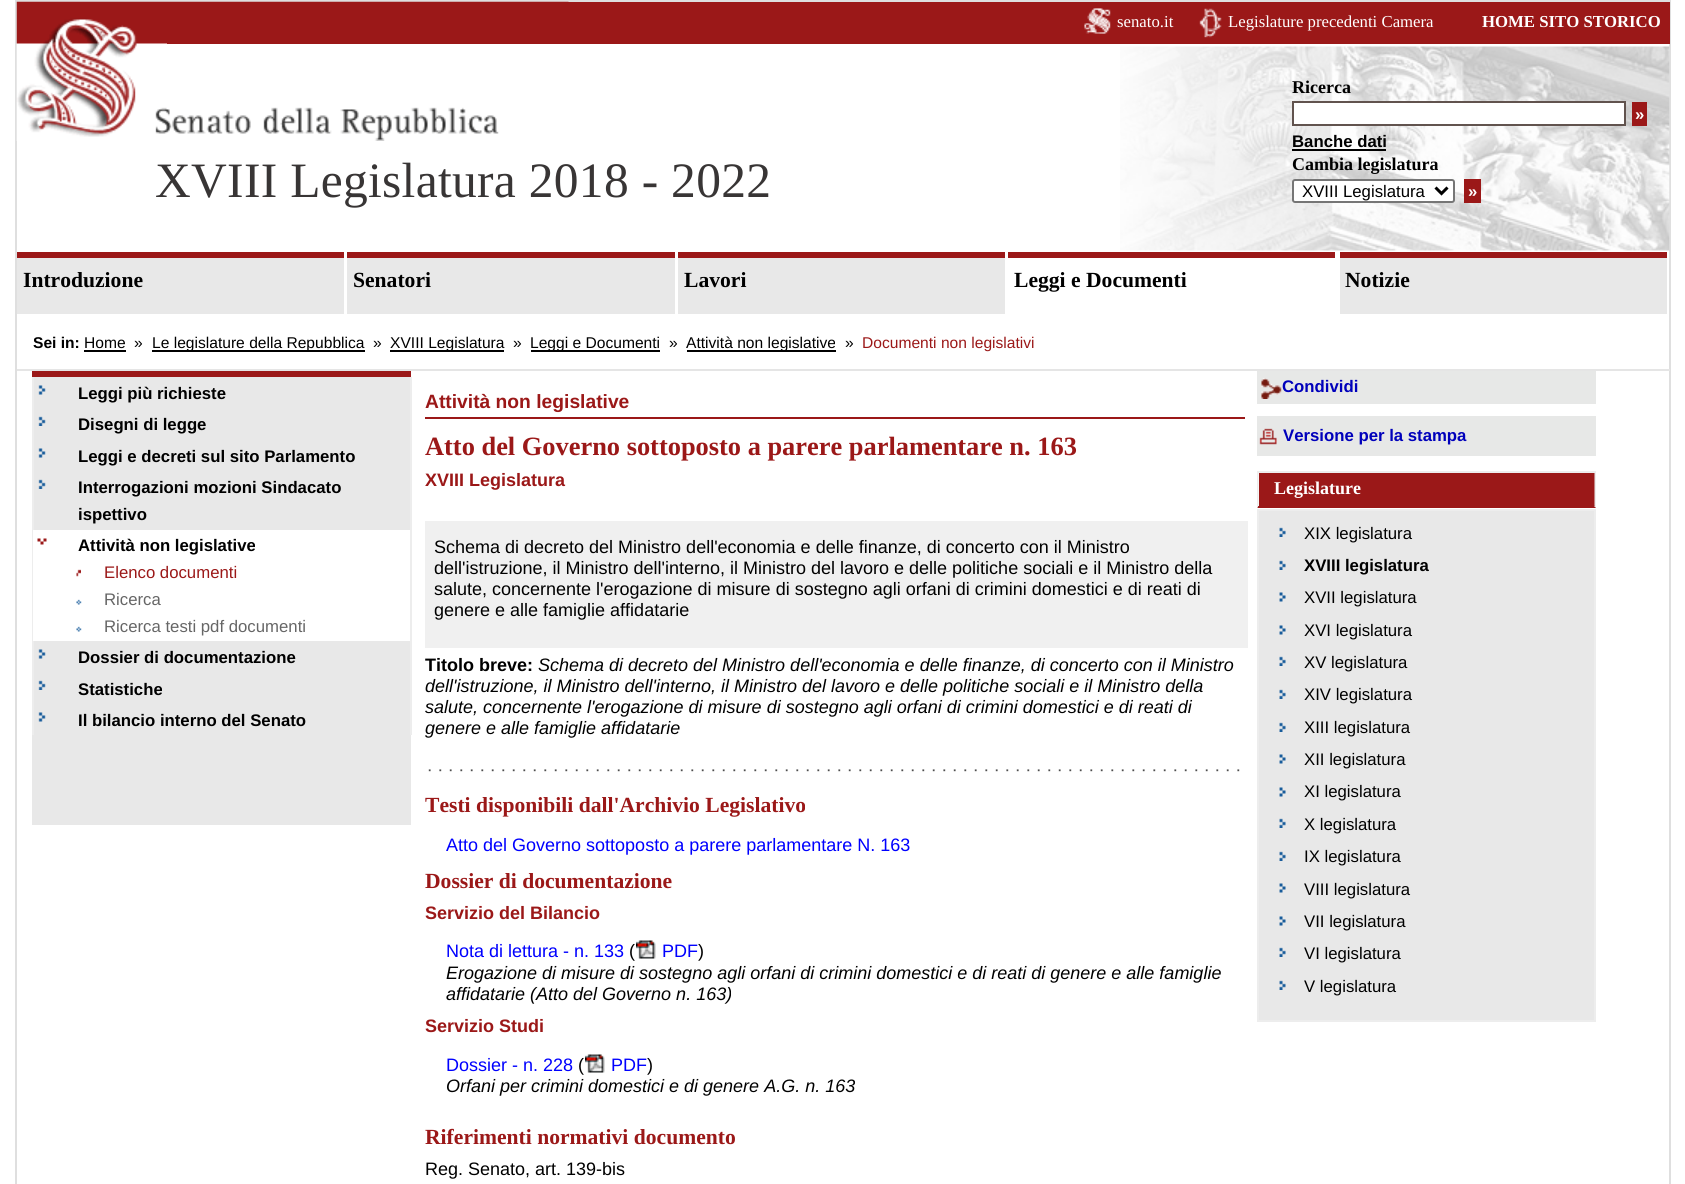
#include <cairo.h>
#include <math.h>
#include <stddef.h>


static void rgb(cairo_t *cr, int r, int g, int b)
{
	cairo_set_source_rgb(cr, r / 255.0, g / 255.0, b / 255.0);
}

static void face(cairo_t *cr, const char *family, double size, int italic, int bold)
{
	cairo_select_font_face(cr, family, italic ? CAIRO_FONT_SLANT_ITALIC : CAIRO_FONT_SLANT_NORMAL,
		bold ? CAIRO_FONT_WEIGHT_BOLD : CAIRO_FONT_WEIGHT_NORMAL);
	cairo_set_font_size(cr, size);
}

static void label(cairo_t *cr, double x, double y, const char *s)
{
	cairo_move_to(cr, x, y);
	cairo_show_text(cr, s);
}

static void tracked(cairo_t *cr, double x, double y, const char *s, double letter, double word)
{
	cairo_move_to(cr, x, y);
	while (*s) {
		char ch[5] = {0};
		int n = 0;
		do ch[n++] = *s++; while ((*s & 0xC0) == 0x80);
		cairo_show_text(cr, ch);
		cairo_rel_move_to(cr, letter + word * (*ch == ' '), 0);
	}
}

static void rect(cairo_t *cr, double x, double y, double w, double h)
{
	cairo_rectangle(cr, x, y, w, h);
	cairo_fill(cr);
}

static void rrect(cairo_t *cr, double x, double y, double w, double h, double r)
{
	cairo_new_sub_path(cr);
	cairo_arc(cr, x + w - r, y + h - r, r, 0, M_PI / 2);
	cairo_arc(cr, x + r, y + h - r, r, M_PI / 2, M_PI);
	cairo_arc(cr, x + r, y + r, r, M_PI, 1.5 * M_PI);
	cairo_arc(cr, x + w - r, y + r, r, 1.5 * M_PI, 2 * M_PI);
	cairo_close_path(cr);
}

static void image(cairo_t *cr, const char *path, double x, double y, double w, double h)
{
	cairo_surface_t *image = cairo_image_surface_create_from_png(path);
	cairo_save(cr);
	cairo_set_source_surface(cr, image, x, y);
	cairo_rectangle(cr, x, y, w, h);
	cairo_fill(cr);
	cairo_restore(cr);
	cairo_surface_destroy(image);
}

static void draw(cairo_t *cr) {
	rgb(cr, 255, 255, 255);
	cairo_paint(cr);
	cairo_rectangle(cr, 16, 1, 1654, 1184);
	rgb(cr, 223, 223, 223);
	cairo_stroke(cr);
	image(cr, "image0.png", 1120, 46, 550, 205);
	image(cr, "image1.png", 16, 1, 553, 140);
	face(cr, "Liberation Serif", 49.5, 0, 0);
	rgb(cr, 56, 53, 53);
	tracked(cr, 155, 197, "XVIII Legislatura 2018 - 2022", 0.3, 0);
	rgb(cr, 155, 24, 24);
	rect(cr, 167, 2, 1503, 42);
	image(cr, "image2.png", 1084, 8, 27, 26);
	face(cr, "Liberation Serif", 16.75, 0, 0);
	rgb(cr, 255, 255, 255);
	label(cr, 1117, 27, "senato.it");
	image(cr, "image3.png", 1199, 8, 23, 30);
	label(cr, 1228, 27, "Legislature precedenti Camera");
	face(cr, "Liberation Serif", 16.75, 0, 1);
	label(cr, 1482, 27, "HOME SITO STORICO");
	face(cr, "Liberation Serif", 18, 0, 1);
	rgb(cr, 0, 0, 0);
	label(cr, 1292, 93, "Ricerca");
	rgb(cr, 255, 255, 255);
	cairo_rectangle(cr, 1293, 102, 332, 23);
	cairo_fill_preserve(cr);
	rgb(cr, 97, 83, 78);
	cairo_stroke(cr);
	rgb(cr, 155, 24, 24);
	rect(cr, 1632, 102, 15, 24);
	face(cr, "Liberation Sans", 16.75, 0, 1);
	rgb(cr, 255, 255, 255);
	label(cr, 1635, 120, "»");
	rgb(cr, 0, 0, 0);
	label(cr, 1292, 147, "Banche dati");
	rect(cr, 1292, 149, 94, 2);
	face(cr, "Liberation Serif", 18, 0, 1);
	label(cr, 1292, 170, "Cambia legislatura");
	rgb(cr, 255, 255, 255);
	rrect(cr, 1293, 180, 161, 22, 2);
	cairo_fill_preserve(cr);
	rgb(cr, 118, 118, 118);
	cairo_stroke(cr);
	cairo_new_path(cr);
	cairo_move_to(cr, 1435.5, 187.5);
	cairo_line_to(cr, 1441.5, 193.5);
	cairo_line_to(cr, 1447.5, 187.5);
	rgb(cr, 0, 0, 0);
	cairo_set_line_width(cr, 3);
	cairo_stroke(cr);
	face(cr, "Liberation Sans", 16.75, 0, 0);
	label(cr, 1302, 197, "XVIII Legislatura");
	rgb(cr, 155, 24, 24);
	rect(cr, 1464, 179, 17, 24);
	face(cr, "Liberation Sans", 16.75, 0, 1);
	rgb(cr, 255, 255, 255);
	label(cr, 1468, 197, "»");
	rgb(cr, 232, 232, 232);
	rect(cr, 17, 258, 327, 56);
	rgb(cr, 155, 24, 24);
	rect(cr, 17, 252, 327, 6);
	face(cr, "Liberation Serif", 21.6, 0, 1);
	rgb(cr, 0, 0, 0);
	label(cr, 23, 287, "Introduzione");
	rgb(cr, 232, 232, 232);
	rect(cr, 347, 258, 328, 56);
	rgb(cr, 155, 24, 24);
	rect(cr, 347, 252, 328, 6);
	rgb(cr, 0, 0, 0);
	label(cr, 353, 287, "Senatori");
	rgb(cr, 232, 232, 232);
	rect(cr, 678, 258, 327, 56);
	rgb(cr, 155, 24, 24);
	rect(cr, 678, 252, 327, 6);
	rgb(cr, 0, 0, 0);
	label(cr, 684, 287, "Lavori");
	rgb(cr, 155, 24, 24);
	rect(cr, 1008, 252, 327, 6);
	rgb(cr, 0, 0, 0);
	label(cr, 1014, 287, "Leggi e Documenti");
	rgb(cr, 232, 232, 232);
	rect(cr, 1340, 258, 327, 56);
	rgb(cr, 155, 24, 24);
	rect(cr, 1340, 252, 327, 6);
	rgb(cr, 0, 0, 0);
	label(cr, 1345, 287, "Notizie");
	rgb(cr, 229, 229, 229);
	rect(cr, 17, 369, 1653, 2);
	face(cr, "Liberation Sans", 15.6, 0, 1);
	rgb(cr, 0, 0, 0);
	label(cr, 33, 348, "Sei in:");
	face(cr, "Liberation Sans", 15.6, 0, 0);
	label(cr, 84, 348, "Home");
	rect(cr, 84, 350, 42, 2);
	label(cr, 134, 348, "»");
	rect(cr, 152, 350, 213, 2);
	label(cr, 152, 348, "Le legislature della Repubblica");
	label(cr, 373, 348, "»");
	rect(cr, 390, 350, 114, 2);
	label(cr, 390, 348, "XVIII Legislatura");
	label(cr, 513, 348, "»");
	rect(cr, 531, 350, 129, 2);
	label(cr, 530, 348, "Leggi e Documenti");
	label(cr, 669, 348, "»");
	rect(cr, 687, 350, 149, 2);
	label(cr, 686, 348, "Attività non legislative");
	label(cr, 845, 348, "»");
	rgb(cr, 155, 24, 24);
	label(cr, 862, 348, "Documenti non legislativi");
	rgb(cr, 232, 232, 232);
	rect(cr, 32, 377, 379, 448);
	rgb(cr, 155, 24, 24);
	rect(cr, 32, 371, 379, 6);
	rgb(cr, 237, 237, 237);
	rect(cr, 410, 377, 2, 358);
	rect(cr, 32, 377, 2, 358);
	image(cr, "image4.png", 38, 385, 8, 10);
	face(cr, "Liberation Sans", 16.75, 0, 1);
	rgb(cr, 0, 0, 0);
	label(cr, 78, 399, "Leggi più richieste");
	image(cr, "image5.png", 38, 416, 8, 10);
	label(cr, 78, 430, "Disegni di legge");
	image(cr, "image4.png", 38, 448, 8, 10);
	label(cr, 78, 462, "Leggi e decreti sul sito Parlamento");
	image(cr, "image5.png", 38, 479, 8, 10);
	label(cr, 78, 493, "Interrogazioni mozioni Sindacato");
	label(cr, 78, 520, "ispettivo");
	rgb(cr, 255, 255, 255);
	rect(cr, 33, 530, 377, 111);
	image(cr, "image6.png", 37, 538, 10, 7);
	rgb(cr, 0, 0, 0);
	label(cr, 78, 551, "Attività non legislative");
	image(cr, "image7.png", 76, 569, 5, 8);
	face(cr, "Liberation Sans", 16.75, 0, 0);
	rgb(cr, 155, 24, 24);
	label(cr, 104, 578, "Elenco documenti");
	image(cr, "image8.png", 76, 599, 6, 6);
	rgb(cr, 102, 102, 102);
	label(cr, 104, 605, "Ricerca");
	image(cr, "image8.png", 76, 626, 6, 6);
	label(cr, 104, 632, "Ricerca testi pdf documenti");
	image(cr, "image4.png", 38, 649, 8, 10);
	face(cr, "Liberation Sans", 16.75, 0, 1);
	rgb(cr, 0, 0, 0);
	label(cr, 78, 663, "Dossier di documentazione");
	image(cr, "image5.png", 38, 680, 8, 10);
	label(cr, 78, 695, "Statistiche");
	image(cr, "image4.png", 38, 712, 8, 10);
	label(cr, 78, 726, "Il bilancio interno del Senato");
	rgb(cr, 155, 24, 24);
	rect(cr, 425, 417, 820, 2);
	face(cr, "Liberation Sans", 19.25, 0, 1);
	label(cr, 425, 408, "Attività non legislative");
	face(cr, "Liberation Serif", 26.4, 0, 1);
	label(cr, 425, 455, "Atto del Governo sottoposto a parere parlamentare n. 163");
	face(cr, "Liberation Sans", 18, 0, 1);
	label(cr, 425, 486, "XVIII Legislatura");
	rgb(cr, 240, 240, 240);
	rect(cr, 425, 521, 823, 127);
	face(cr, "Liberation Sans", 18, 0, 0);
	rgb(cr, 0, 0, 0);
	label(cr, 434, 553, "Schema di decreto del Ministro dell'economia e delle finanze, di concerto con il Ministro");
	label(cr, 434, 574, "dell'istruzione, il Ministro dell'interno, il Ministro del lavoro e delle politiche sociali e il Ministro della");
	label(cr, 434, 595, "salute, concernente l'erogazione di misure di sostegno agli orfani di crimini domestici e di reati di");
	label(cr, 434, 616, "genere e alle famiglie affidatarie");
	face(cr, "Liberation Sans", 18, 0, 1);
	label(cr, 425, 671, "Titolo breve:");
	face(cr, "Liberation Sans", 18, 1, 0);
	label(cr, 538, 671, "Schema di decreto del Ministro dell'economia e delle finanze, di concerto con il Ministro");
	label(cr, 425, 692, "dell'istruzione, il Ministro dell'interno, il Ministro del lavoro e delle politiche sociali e il Ministro della");
	label(cr, 425, 713, "salute, concernente l'erogazione di misure di sostegno agli orfani di crimini domestici e di reati di");
	label(cr, 425, 734, "genere e alle famiglie affidatarie");
	image(cr, "image9.png", 428, 769, 812, 3);
	face(cr, "Liberation Serif", 21.6, 0, 1);
	rgb(cr, 155, 24, 24);
	label(cr, 425, 812, "Testi disponibili dall'Archivio Legislativo");
	face(cr, "Liberation Sans", 18, 0, 0);
	rgb(cr, 0, 0, 255);
	label(cr, 446, 851, "Atto del Governo sottoposto a parere parlamentare N. 163");
	face(cr, "Liberation Serif", 21.6, 0, 1);
	rgb(cr, 155, 24, 24);
	label(cr, 425, 888, "Dossier di documentazione");
	face(cr, "Liberation Sans", 18, 0, 1);
	label(cr, 425, 919, "Servizio del Bilancio");
	face(cr, "Liberation Sans", 18, 0, 0);
	rgb(cr, 0, 0, 255);
	label(cr, 446, 957, "Nota di lettura - n. 133");
	rgb(cr, 0, 0, 0);
	label(cr, 629, 957, "(");
	image(cr, "image10.png", 636, 940, 20, 19);
	rgb(cr, 0, 0, 255);
	label(cr, 662, 957, "PDF");
	rgb(cr, 0, 0, 0);
	label(cr, 698, 957, ")");
	face(cr, "Liberation Sans", 18, 1, 0);
	label(cr, 446, 979, "Erogazione di misure di sostegno agli orfani di crimini domestici e di reati di genere e alle famiglie");
	label(cr, 446, 1000, "affidatarie (Atto del Governo n. 163)");
	face(cr, "Liberation Sans", 18, 0, 1);
	rgb(cr, 155, 24, 24);
	label(cr, 425, 1032, "Servizio Studi");
	face(cr, "Liberation Sans", 18, 0, 0);
	rgb(cr, 0, 0, 255);
	label(cr, 446, 1071, "Dossier - n. 228");
	rgb(cr, 0, 0, 0);
	label(cr, 578, 1071, "(");
	image(cr, "image11.png", 585, 1054, 20, 19);
	rgb(cr, 0, 0, 255);
	label(cr, 611, 1071, "PDF");
	rgb(cr, 0, 0, 0);
	label(cr, 647, 1071, ")");
	face(cr, "Liberation Sans", 18, 1, 0);
	label(cr, 446, 1092, "Orfani per crimini domestici e di genere A.G. n. 163");
	face(cr, "Liberation Serif", 21.6, 0, 1);
	rgb(cr, 155, 24, 24);
	label(cr, 425, 1144, "Riferimenti normativi documento");
	face(cr, "Liberation Sans", 18, 0, 0);
	rgb(cr, 0, 0, 0);
	label(cr, 425, 1175, "Reg. Senato, art. 139-bis");
	rgb(cr, 231, 232, 231);
	rect(cr, 1257, 371, 339, 33);
	image(cr, "image12.png", 1261, 378, 21, 21);
	face(cr, "Liberation Sans", 16.75, 0, 1);
	rgb(cr, 0, 0, 187);
	label(cr, 1282, 392, "Condividi");
	rgb(cr, 231, 232, 231);
	rect(cr, 1257, 416, 339, 40);
	image(cr, "image13.png", 1259, 428, 18, 17);
	rgb(cr, 0, 0, 187);
	label(cr, 1283, 441, "Versione per la stampa");
	rgb(cr, 155, 24, 24);
	rect(cr, 1259, 473, 336, 33);
	rgb(cr, 237, 237, 237);
	rect(cr, 1257, 471, 339, 2);
	cairo_new_path(cr);
	cairo_move_to(cr, 1596, 471);
	cairo_line_to(cr, 1596, 508.5);
	cairo_line_to(cr, 1594.5, 505.5);
	cairo_line_to(cr, 1594.5, 472.5);
	cairo_close_path(cr);
	cairo_fill(cr);
	rgb(cr, 155, 24, 24);
	cairo_new_path(cr);
	cairo_move_to(cr, 1596, 508);
	cairo_line_to(cr, 1257, 508);
	cairo_line_to(cr, 1258, 506);
	cairo_line_to(cr, 1594, 506);
	cairo_close_path(cr);
	cairo_fill(cr);
	rgb(cr, 237, 237, 237);
	cairo_new_path(cr);
	cairo_move_to(cr, 1257, 508.5);
	cairo_line_to(cr, 1257, 471);
	cairo_line_to(cr, 1258.5, 472.5);
	cairo_line_to(cr, 1258.5, 505.5);
	cairo_close_path(cr);
	cairo_fill(cr);
	face(cr, "Liberation Serif", 18, 0, 1);
	rgb(cr, 255, 255, 255);
	label(cr, 1274, 494, "Legislature");
	rgb(cr, 232, 232, 232);
	cairo_rectangle(cr, 1258, 510, 337, 511);
	cairo_fill_preserve(cr);
	rgb(cr, 237, 237, 237);
	cairo_set_line_width(cr, 2);
	cairo_stroke(cr);
	image(cr, "image14.png", 1279, 527, 7, 10);
	face(cr, "Liberation Sans", 16.75, 0, 0);
	rgb(cr, 0, 0, 0);
	label(cr, 1304, 539, "XIX legislatura");
	image(cr, "image14.png", 1279, 560, 7, 10);
	face(cr, "Liberation Sans", 16.75, 0, 1);
	label(cr, 1304, 571, "XVIII legislatura");
	image(cr, "image15.png", 1279, 592, 7, 10);
	face(cr, "Liberation Sans", 16.75, 0, 0);
	label(cr, 1304, 603, "XVII legislatura");
	image(cr, "image15.png", 1279, 625, 7, 10);
	label(cr, 1304, 636, "XVI legislatura");
	image(cr, "image14.png", 1279, 656, 7, 10);
	label(cr, 1304, 668, "XV legislatura");
	image(cr, "image14.png", 1279, 689, 7, 10);
	label(cr, 1304, 700, "XIV legislatura");
	image(cr, "image14.png", 1279, 722, 7, 10);
	label(cr, 1304, 733, "XIII legislatura");
	image(cr, "image15.png", 1279, 754, 7, 10);
	label(cr, 1304, 765, "XII legislatura");
	image(cr, "image15.png", 1279, 787, 7, 10);
	label(cr, 1304, 797, "XI legislatura");
	image(cr, "image14.png", 1279, 818, 7, 10);
	label(cr, 1304, 830, "X legislatura");
	image(cr, "image14.png", 1279, 851, 7, 10);
	label(cr, 1304, 862, "IX legislatura");
	image(cr, "image15.png", 1279, 883, 7, 10);
	label(cr, 1304, 895, "VIII legislatura");
	image(cr, "image15.png", 1279, 916, 7, 10);
	label(cr, 1304, 927, "VII legislatura");
	image(cr, "image14.png", 1279, 947, 7, 10);
	label(cr, 1304, 959, "VI legislatura");
	image(cr, "image14.png", 1279, 980, 7, 10);
	label(cr, 1304, 992, "V legislatura");
}

int main(void) {
	cairo_surface_t *surface = cairo_image_surface_create(CAIRO_FORMAT_RGB24, 1685, 1184);
	cairo_t *cr = cairo_create(surface);
	cairo_font_options_t *options = cairo_font_options_create();
	cairo_font_options_set_hint_metrics(options, CAIRO_HINT_METRICS_OFF);
	cairo_font_options_set_hint_style(options, CAIRO_HINT_STYLE_NONE);
	cairo_set_font_options(cr, options);
	cairo_set_miter_limit(cr, 4);
	draw(cr);
	cairo_surface_write_to_png(surface, "render.png");
	cairo_font_options_destroy(options);
	cairo_destroy(cr);
	cairo_surface_destroy(surface);
	return 0;
}
